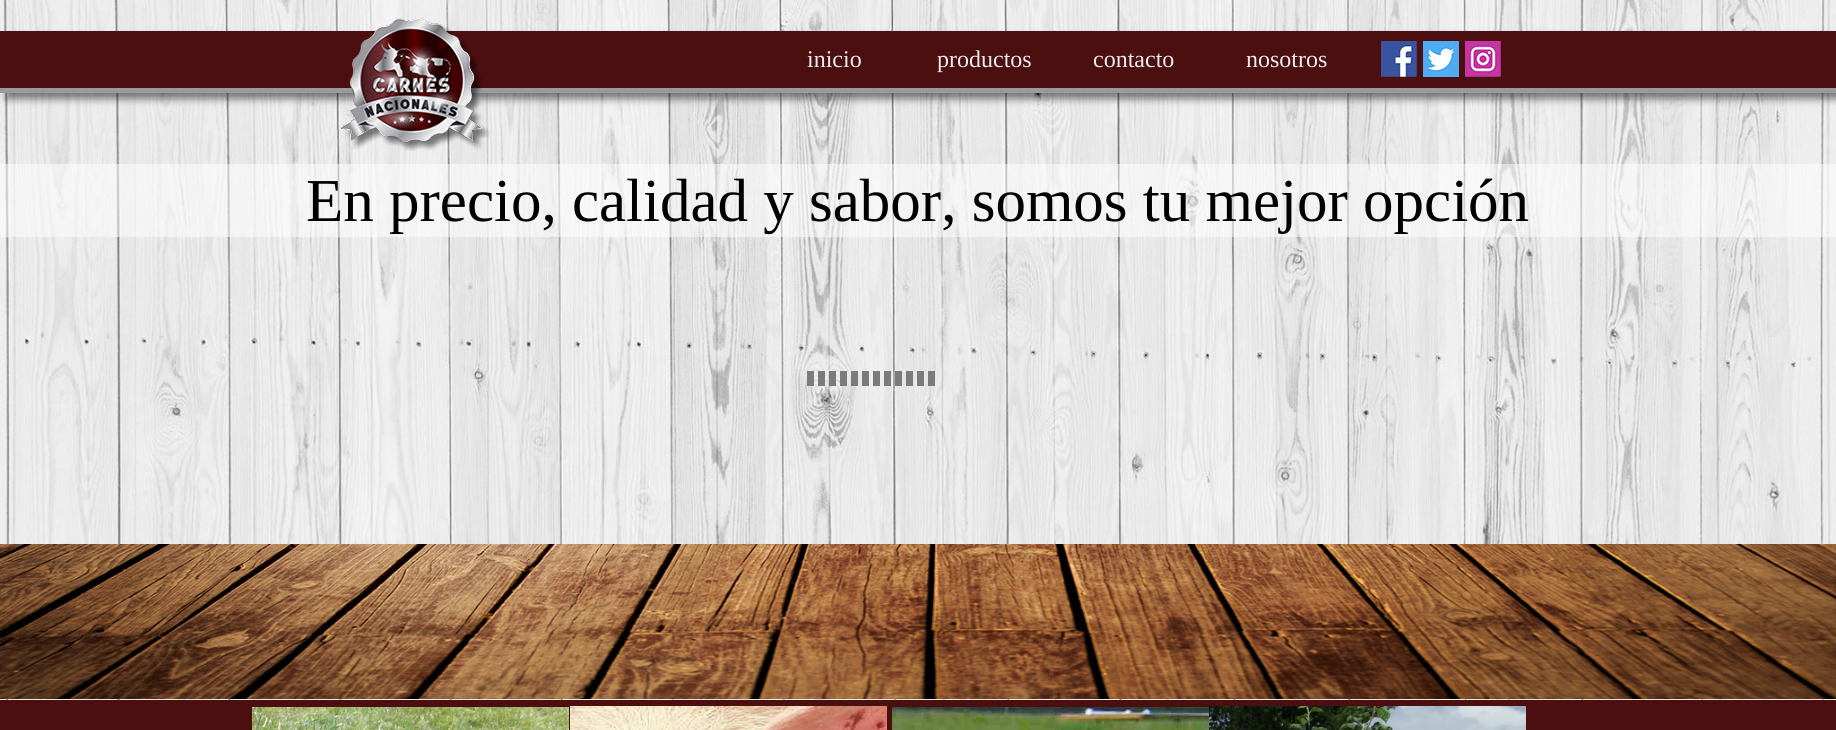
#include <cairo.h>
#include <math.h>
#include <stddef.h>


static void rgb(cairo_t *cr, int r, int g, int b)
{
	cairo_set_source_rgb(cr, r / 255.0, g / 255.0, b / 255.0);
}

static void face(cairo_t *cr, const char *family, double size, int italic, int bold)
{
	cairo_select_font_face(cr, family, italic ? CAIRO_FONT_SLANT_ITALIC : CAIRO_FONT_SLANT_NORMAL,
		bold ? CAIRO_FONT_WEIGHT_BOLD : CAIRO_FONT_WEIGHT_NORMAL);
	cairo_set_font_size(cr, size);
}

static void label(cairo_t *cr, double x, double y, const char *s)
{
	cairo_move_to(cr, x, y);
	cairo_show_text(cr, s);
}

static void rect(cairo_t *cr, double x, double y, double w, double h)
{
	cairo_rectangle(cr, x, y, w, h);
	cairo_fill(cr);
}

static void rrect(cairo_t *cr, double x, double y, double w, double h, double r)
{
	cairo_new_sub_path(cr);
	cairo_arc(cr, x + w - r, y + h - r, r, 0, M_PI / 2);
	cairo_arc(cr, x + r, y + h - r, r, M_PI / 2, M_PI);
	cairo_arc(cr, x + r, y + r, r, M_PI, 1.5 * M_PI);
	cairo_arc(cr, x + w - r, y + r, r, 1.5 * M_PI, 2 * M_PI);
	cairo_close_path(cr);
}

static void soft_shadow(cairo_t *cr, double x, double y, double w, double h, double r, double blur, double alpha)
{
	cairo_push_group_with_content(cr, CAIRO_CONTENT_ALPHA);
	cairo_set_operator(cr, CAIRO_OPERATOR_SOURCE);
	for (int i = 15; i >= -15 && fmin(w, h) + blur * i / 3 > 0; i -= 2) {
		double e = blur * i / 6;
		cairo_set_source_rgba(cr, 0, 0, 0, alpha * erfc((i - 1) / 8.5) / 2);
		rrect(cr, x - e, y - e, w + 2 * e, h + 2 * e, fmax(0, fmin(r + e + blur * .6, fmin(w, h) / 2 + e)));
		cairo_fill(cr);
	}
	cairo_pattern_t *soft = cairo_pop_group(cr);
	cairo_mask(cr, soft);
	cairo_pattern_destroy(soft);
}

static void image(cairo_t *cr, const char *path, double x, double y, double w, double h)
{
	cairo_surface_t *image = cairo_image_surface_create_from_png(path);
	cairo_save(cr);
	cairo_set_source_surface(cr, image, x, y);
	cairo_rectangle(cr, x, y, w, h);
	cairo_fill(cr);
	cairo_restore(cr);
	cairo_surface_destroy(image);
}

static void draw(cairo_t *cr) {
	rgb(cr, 255, 255, 255);
	cairo_paint(cr);
	image(cr, "image2.png", 0, 0, 1836, 700);
	rgb(cr, 0, 0, 0);
	soft_shadow(cr, 6, 37, 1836, 62, 0, 4, 0.5);
	rgb(cr, 76, 15, 16);
	rect(cr, 0, 31, 1836, 57);
	rgb(cr, 154, 153, 158);
	rect(cr, 0, 88, 1836, 5);
	image(cr, "image0.png", 340, 17, 150, 134);
	face(cr, "Liberation Serif", 24, 0, 0);
	rgb(cr, 235, 236, 238);
	label(cr, 807, 67, "inicio");
	label(cr, 937, 67, "productos");
	label(cr, 1093, 67, "contacto");
	label(cr, 1246, 67, "nosotros");
	image(cr, "image1.png", 1423, 41, 36, 36);
	image(cr, "image3.png", 1381, 41, 36, 36);
	image(cr, "image4.png", 1465, 41, 36, 36);
	cairo_set_source_rgba(cr, 1, 1, 1, 0.5);
	rect(cr, 0, 164, 1836, 73);
	face(cr, "Liberation Serif", 61, 0, 0);
	rgb(cr, 0, 0, 0);
	label(cr, 306, 221, "En precio, calidad y sabor, somos tu mejor opción");
	image(cr, "image5.png", 807, 371, 128, 15);
	image(cr, "image6.png", 0, 544, 1836, 155);
	rgb(cr, 76, 15, 16);
	rect(cr, 0, 700, 1836, 30);
	image(cr, "image7.png", 252, 707, 317, 23);
	image(cr, "image8.png", 570, 706, 317, 24);
	image(cr, "image9.png", 892, 707, 317, 23);
	image(cr, "image10.png", 1209, 706, 317, 24);
}

int main(void) {
	cairo_surface_t *surface = cairo_image_surface_create(CAIRO_FORMAT_RGB24, 1836, 730);
	cairo_t *cr = cairo_create(surface);
	cairo_font_options_t *options = cairo_font_options_create();
	cairo_font_options_set_hint_metrics(options, CAIRO_HINT_METRICS_OFF);
	cairo_font_options_set_hint_style(options, CAIRO_HINT_STYLE_NONE);
	cairo_set_font_options(cr, options);
	cairo_set_miter_limit(cr, 4);
	draw(cr);
	cairo_surface_write_to_png(surface, "render.png");
	cairo_font_options_destroy(options);
	cairo_destroy(cr);
	cairo_surface_destroy(surface);
	return 0;
}
